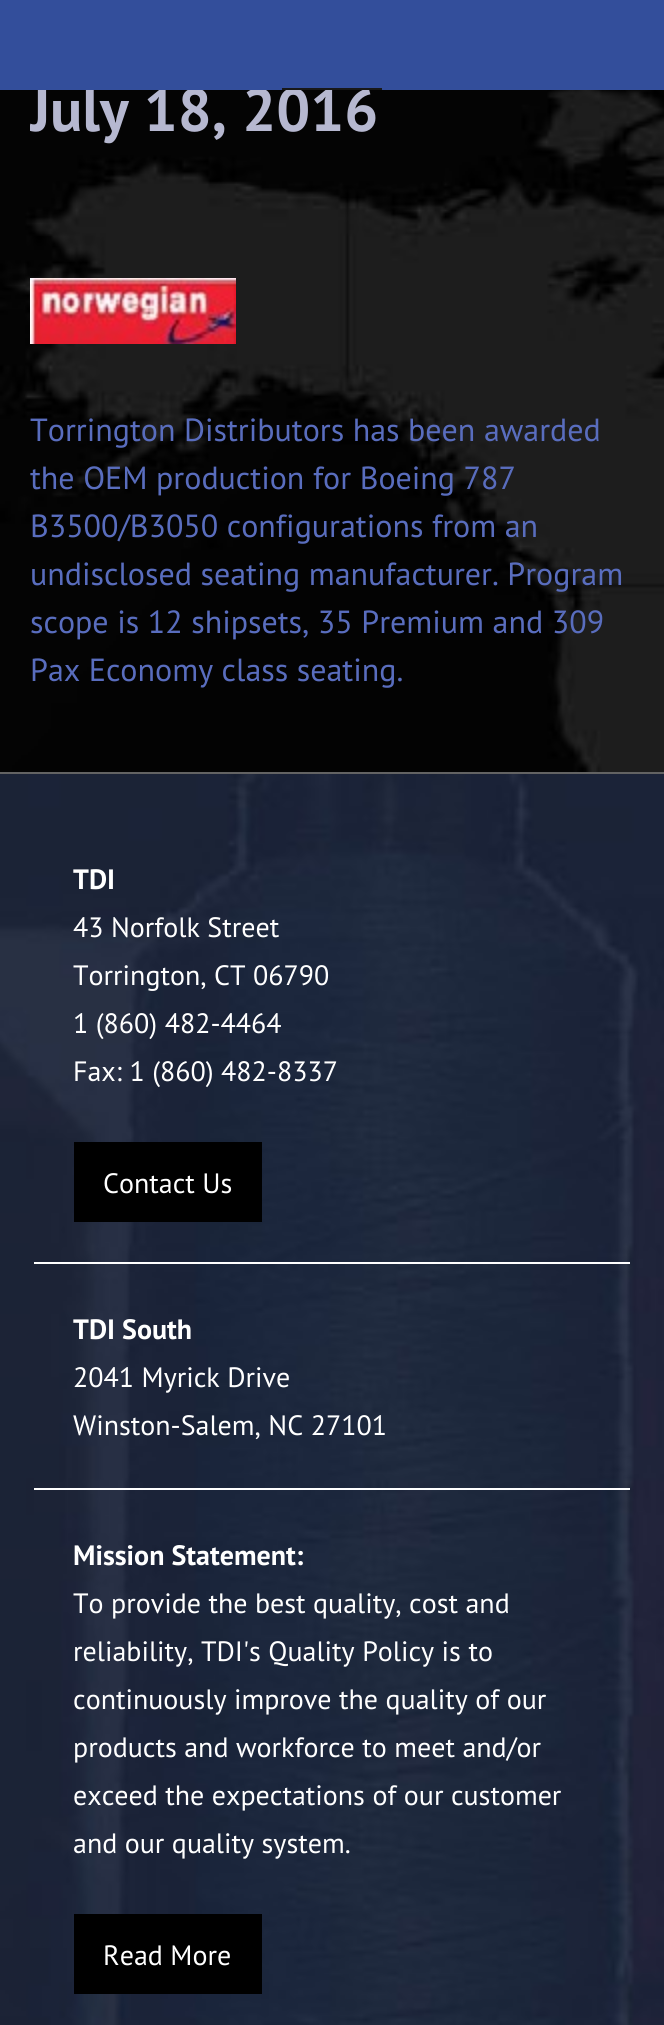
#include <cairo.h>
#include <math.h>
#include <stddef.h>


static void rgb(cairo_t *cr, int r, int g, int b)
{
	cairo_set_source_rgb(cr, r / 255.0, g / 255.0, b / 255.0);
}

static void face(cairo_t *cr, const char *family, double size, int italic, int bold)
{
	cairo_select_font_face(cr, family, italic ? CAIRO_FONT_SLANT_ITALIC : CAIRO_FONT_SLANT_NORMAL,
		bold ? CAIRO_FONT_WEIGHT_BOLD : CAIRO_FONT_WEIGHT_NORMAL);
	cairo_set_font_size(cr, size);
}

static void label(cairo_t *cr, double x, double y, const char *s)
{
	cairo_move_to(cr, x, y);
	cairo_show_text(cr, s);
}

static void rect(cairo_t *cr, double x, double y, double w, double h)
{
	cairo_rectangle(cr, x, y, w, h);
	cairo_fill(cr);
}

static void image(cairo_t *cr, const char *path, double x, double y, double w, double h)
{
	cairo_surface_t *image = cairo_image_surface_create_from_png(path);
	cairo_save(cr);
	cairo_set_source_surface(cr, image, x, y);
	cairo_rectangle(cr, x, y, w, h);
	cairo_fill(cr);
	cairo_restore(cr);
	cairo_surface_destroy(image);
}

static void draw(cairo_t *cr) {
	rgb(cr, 255, 255, 255);
	cairo_paint(cr);
	image(cr, "image0.png", 0, 90, 664, 682);
	cairo_save(cr);
	cairo_rectangle(cr, 30, 58, 604, 694);
	cairo_clip(cr);
	face(cr, "PT Sans", 60, 0, 1);
	rgb(cr, 182, 184, 208);
	label(cr, 30, 131, "July 18, 2016");
	cairo_restore(cr);
	rgb(cr, 51, 78, 155);
	rect(cr, 0, 0, 664, 90);
	rgb(cr, 24, 24, 24);
	rect(cr, 282, 88, 100, 2);
	image(cr, "image1.png", 30, 278, 206, 66);
	face(cr, "PT Sans", 32, 0, 0);
	rgb(cr, 89, 109, 190);
	label(cr, 30, 441, "Torrington Distributors has been awarded");
	label(cr, 30, 489, "the OEM production for Boeing 787");
	label(cr, 30, 537, "B3500/B3050 configurations from an");
	label(cr, 30, 585, "undisclosed seating manufacturer. Program");
	label(cr, 30, 633, "scope is 12 shipsets, 35 Premium and 309");
	label(cr, 30, 681, "Pax Economy class seating.");
	image(cr, "image2.png", 0, 774, 664, 1251);
	rgb(cr, 99, 99, 99);
	rect(cr, 0, 772, 664, 2);
	rgb(cr, 255, 255, 255);
	rect(cr, 34, 1262, 596, 2);
	face(cr, "PT Sans", 28, 0, 1);
	label(cr, 73, 889, "TDI");
	face(cr, "PT Sans", 28, 0, 0);
	label(cr, 73, 937, "43 Norfolk Street");
	label(cr, 73, 985, "Torrington, CT 06790");
	label(cr, 73, 1033, "1 (860) 482-4464");
	label(cr, 73, 1081, "Fax: 1 (860) 482-8337");
	rgb(cr, 0, 0, 0);
	rect(cr, 74, 1142, 188, 80);
	rgb(cr, 255, 255, 255);
	label(cr, 103, 1193, "Contact Us");
	rect(cr, 34, 1488, 596, 2);
	face(cr, "PT Sans", 28, 0, 1);
	label(cr, 73, 1339, "TDI South");
	face(cr, "PT Sans", 28, 0, 0);
	label(cr, 73, 1387, "2041 Myrick Drive");
	label(cr, 73, 1435, "Winston-Salem, NC 27101");
	face(cr, "PT Sans", 28, 0, 1);
	label(cr, 73, 1565, "Mission Statement:");
	face(cr, "PT Sans", 28, 0, 0);
	label(cr, 73, 1613, "To provide the best quality, cost and");
	label(cr, 73, 1661, "reliability, TDI's Quality Policy is to");
	label(cr, 73, 1709, "continuously improve the quality of our");
	label(cr, 73, 1757, "products and workforce to meet and/or");
	label(cr, 73, 1805, "exceed the expectations of our customer");
	label(cr, 73, 1853, "and our quality system.");
	rgb(cr, 0, 0, 0);
	rect(cr, 74, 1914, 188, 80);
	rgb(cr, 255, 255, 255);
	label(cr, 103, 1965, "Read More");
}

int main(void) {
	cairo_surface_t *surface = cairo_image_surface_create(CAIRO_FORMAT_RGB24, 664, 2025);
	cairo_t *cr = cairo_create(surface);
	cairo_font_options_t *options = cairo_font_options_create();
	cairo_font_options_set_hint_metrics(options, CAIRO_HINT_METRICS_OFF);
	cairo_font_options_set_hint_style(options, CAIRO_HINT_STYLE_NONE);
	cairo_set_font_options(cr, options);
	cairo_set_miter_limit(cr, 4);
	draw(cr);
	cairo_surface_write_to_png(surface, "render.png");
	cairo_font_options_destroy(options);
	cairo_destroy(cr);
	cairo_surface_destroy(surface);
	return 0;
}
